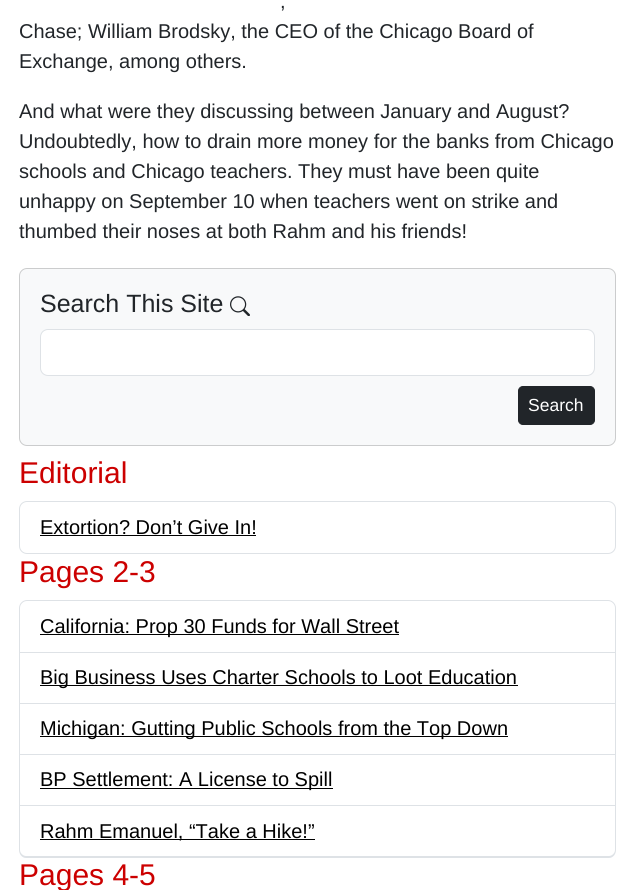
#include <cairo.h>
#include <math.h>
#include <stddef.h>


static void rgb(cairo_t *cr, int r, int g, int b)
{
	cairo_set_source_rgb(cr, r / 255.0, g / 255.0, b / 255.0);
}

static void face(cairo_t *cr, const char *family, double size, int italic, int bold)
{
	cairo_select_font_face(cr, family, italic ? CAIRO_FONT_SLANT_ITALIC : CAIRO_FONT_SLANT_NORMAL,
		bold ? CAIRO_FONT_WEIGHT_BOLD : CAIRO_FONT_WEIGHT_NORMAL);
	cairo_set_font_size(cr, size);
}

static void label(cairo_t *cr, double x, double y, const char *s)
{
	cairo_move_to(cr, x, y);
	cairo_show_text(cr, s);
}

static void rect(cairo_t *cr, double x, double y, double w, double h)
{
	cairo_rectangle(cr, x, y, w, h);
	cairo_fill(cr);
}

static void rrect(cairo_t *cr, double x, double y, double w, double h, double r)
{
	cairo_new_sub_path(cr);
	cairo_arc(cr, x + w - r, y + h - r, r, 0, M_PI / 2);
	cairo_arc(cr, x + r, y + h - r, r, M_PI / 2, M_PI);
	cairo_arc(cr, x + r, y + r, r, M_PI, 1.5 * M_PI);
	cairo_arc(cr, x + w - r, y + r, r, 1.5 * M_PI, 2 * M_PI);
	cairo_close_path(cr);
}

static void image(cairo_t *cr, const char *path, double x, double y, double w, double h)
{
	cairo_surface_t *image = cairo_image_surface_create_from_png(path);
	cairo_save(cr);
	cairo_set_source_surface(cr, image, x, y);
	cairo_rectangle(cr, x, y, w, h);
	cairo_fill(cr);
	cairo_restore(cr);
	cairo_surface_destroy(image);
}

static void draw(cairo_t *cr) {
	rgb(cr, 255, 255, 255);
	cairo_paint(cr);
	face(cr, "Liberation Sans", 20, 0, 0);
	rgb(cr, 33, 37, 41);
	label(cr, 280, 8, ",");
	label(cr, 19, 38, "Chase; William Brodsky, the CEO of the Chicago Board of");
	label(cr, 19, 68, "Exchange, among others.");
	label(cr, 19, 118, "And what were they discussing between January and August?");
	label(cr, 19, 148, "Undoubtedly, how to drain more money for the banks from Chicago");
	label(cr, 19, 178, "schools and Chicago teachers. They must have been quite");
	label(cr, 19, 208, "unhappy on September 10 when teachers went on strike and");
	label(cr, 19, 238, "thumbed their noses at both Rahm and his friends!");
	rgb(cr, 248, 249, 250);
	rrect(cr, 19, 268, 597, 178, 8);
	cairo_fill(cr);
	rrect(cr, 19.5, 268.5, 596, 177, 7.5);
	cairo_set_source_rgba(cr, 0, 0, 0, 0.18);
	cairo_set_line_width(cr, 1);
	cairo_stroke(cr);
	face(cr, "Liberation Sans", 25, 0, 0);
	rgb(cr, 33, 37, 41);
	label(cr, 40, 312, "Search This Site");
	image(cr, "image0.png", 230, 296, 20, 20);
	rgb(cr, 255, 255, 255);
	rrect(cr, 41, 330, 553, 45, 6);
	cairo_fill(cr);
	rrect(cr, 40.5, 329.5, 554, 46, 7.5);
	rgb(cr, 222, 226, 230);
	cairo_stroke(cr);
	rgb(cr, 33, 37, 41);
	rrect(cr, 518.5, 386.5, 76, 38, 4.5);
	cairo_fill_preserve(cr);
	cairo_stroke(cr);
	face(cr, "Liberation Sans", 17.5, 0, 0);
	rgb(cr, 255, 255, 255);
	label(cr, 528, 411, "Search");
	face(cr, "Liberation Sans", 30, 0, 0);
	rgb(cr, 204, 0, 0);
	label(cr, 19, 483, "Editorial");
	rrect(cr, 19.5, 501.5, 596, 52, 7.5);
	rgb(cr, 222, 226, 230);
	cairo_stroke(cr);
	face(cr, "Liberation Sans", 20, 0, 0);
	rgb(cr, 0, 0, 0);
	label(cr, 40, 534, "Extortion? Don’t Give In!");
	rect(cr, 40, 535, 216, 1);
	face(cr, "Liberation Sans", 30, 0, 0);
	rgb(cr, 204, 0, 0);
	label(cr, 19, 582, "Pages 2-3");
	cairo_new_path(cr);
	cairo_move_to(cr, 27, 600.5);
	cairo_line_to(cr, 608, 600.5);
	cairo_curve_to(cr, 612, 600.5, 615.5, 604, 615.5, 608);
	cairo_line_to(cr, 615.5, 652.5);
	cairo_line_to(cr, 19.5, 652.5);
	cairo_line_to(cr, 19.5, 608);
	cairo_curve_to(cr, 19.5, 604, 23, 600.5, 27, 600.5);
	cairo_close_path(cr);
	rgb(cr, 222, 226, 230);
	cairo_stroke(cr);
	rgb(cr, 0, 0, 0);
	rect(cr, 40, 634, 359, 1);
	face(cr, "Liberation Sans", 20, 0, 0);
	label(cr, 40, 633, "California: Prop 30 Funds for Wall Street");
	rgb(cr, 222, 226, 230);
	rect(cr, 615, 653, 1, 153);
	rect(cr, 19, 703, 597, 1);
	rect(cr, 19, 653, 1, 51);
	rgb(cr, 0, 0, 0);
	rect(cr, 40, 685, 478, 1);
	label(cr, 40, 684, "Big Business Uses Charter Schools to Loot Education");
	rgb(cr, 222, 226, 230);
	rect(cr, 19, 754, 597, 1);
	rect(cr, 19, 704, 1, 51);
	rgb(cr, 0, 0, 0);
	rect(cr, 40, 736, 468, 1);
	label(cr, 40, 735, "Michigan: Gutting Public Schools from the Top Down");
	rgb(cr, 222, 226, 230);
	rect(cr, 19, 805, 597, 1);
	rect(cr, 19, 755, 1, 51);
	rgb(cr, 0, 0, 0);
	rect(cr, 40, 788, 293, 1);
	label(cr, 40, 786, "BP Settlement: A License to Spill");
	rgb(cr, 222, 226, 230);
	cairo_set_fill_rule(cr, CAIRO_FILL_RULE_EVEN_ODD);
	cairo_new_path(cr);
	cairo_move_to(cr, 19, 806);
	cairo_line_to(cr, 616, 806);
	cairo_line_to(cr, 616, 850);
	cairo_curve_to(cr, 616, 854, 613, 858, 609, 858);
	cairo_line_to(cr, 26, 858);
	cairo_curve_to(cr, 22, 858, 19, 854, 19, 850);
	cairo_close_path(cr);
	cairo_move_to(cr, 20, 806);
	cairo_line_to(cr, 615, 806);
	cairo_line_to(cr, 615, 850);
	cairo_curve_to(cr, 615, 853, 612, 856, 609, 856);
	cairo_line_to(cr, 26, 856);
	cairo_curve_to(cr, 23, 856, 20, 853, 20, 850);
	cairo_close_path(cr);
	cairo_fill(cr);
	rgb(cr, 0, 0, 0);
	rect(cr, 40, 839, 275, 1);
	label(cr, 40, 838, "Rahm Emanuel, “Take a Hike!”");
	face(cr, "Liberation Sans", 30, 0, 0);
	rgb(cr, 204, 0, 0);
	label(cr, 19, 885, "Pages 4-5");
}

int main(void) {
	cairo_surface_t *surface = cairo_image_surface_create(CAIRO_FORMAT_RGB24, 635, 890);
	cairo_t *cr = cairo_create(surface);
	cairo_font_options_t *options = cairo_font_options_create();
	cairo_font_options_set_hint_metrics(options, CAIRO_HINT_METRICS_OFF);
	cairo_font_options_set_hint_style(options, CAIRO_HINT_STYLE_NONE);
	cairo_set_font_options(cr, options);
	cairo_set_miter_limit(cr, 4);
	draw(cr);
	cairo_surface_write_to_png(surface, "render.png");
	cairo_font_options_destroy(options);
	cairo_destroy(cr);
	cairo_surface_destroy(surface);
	return 0;
}
